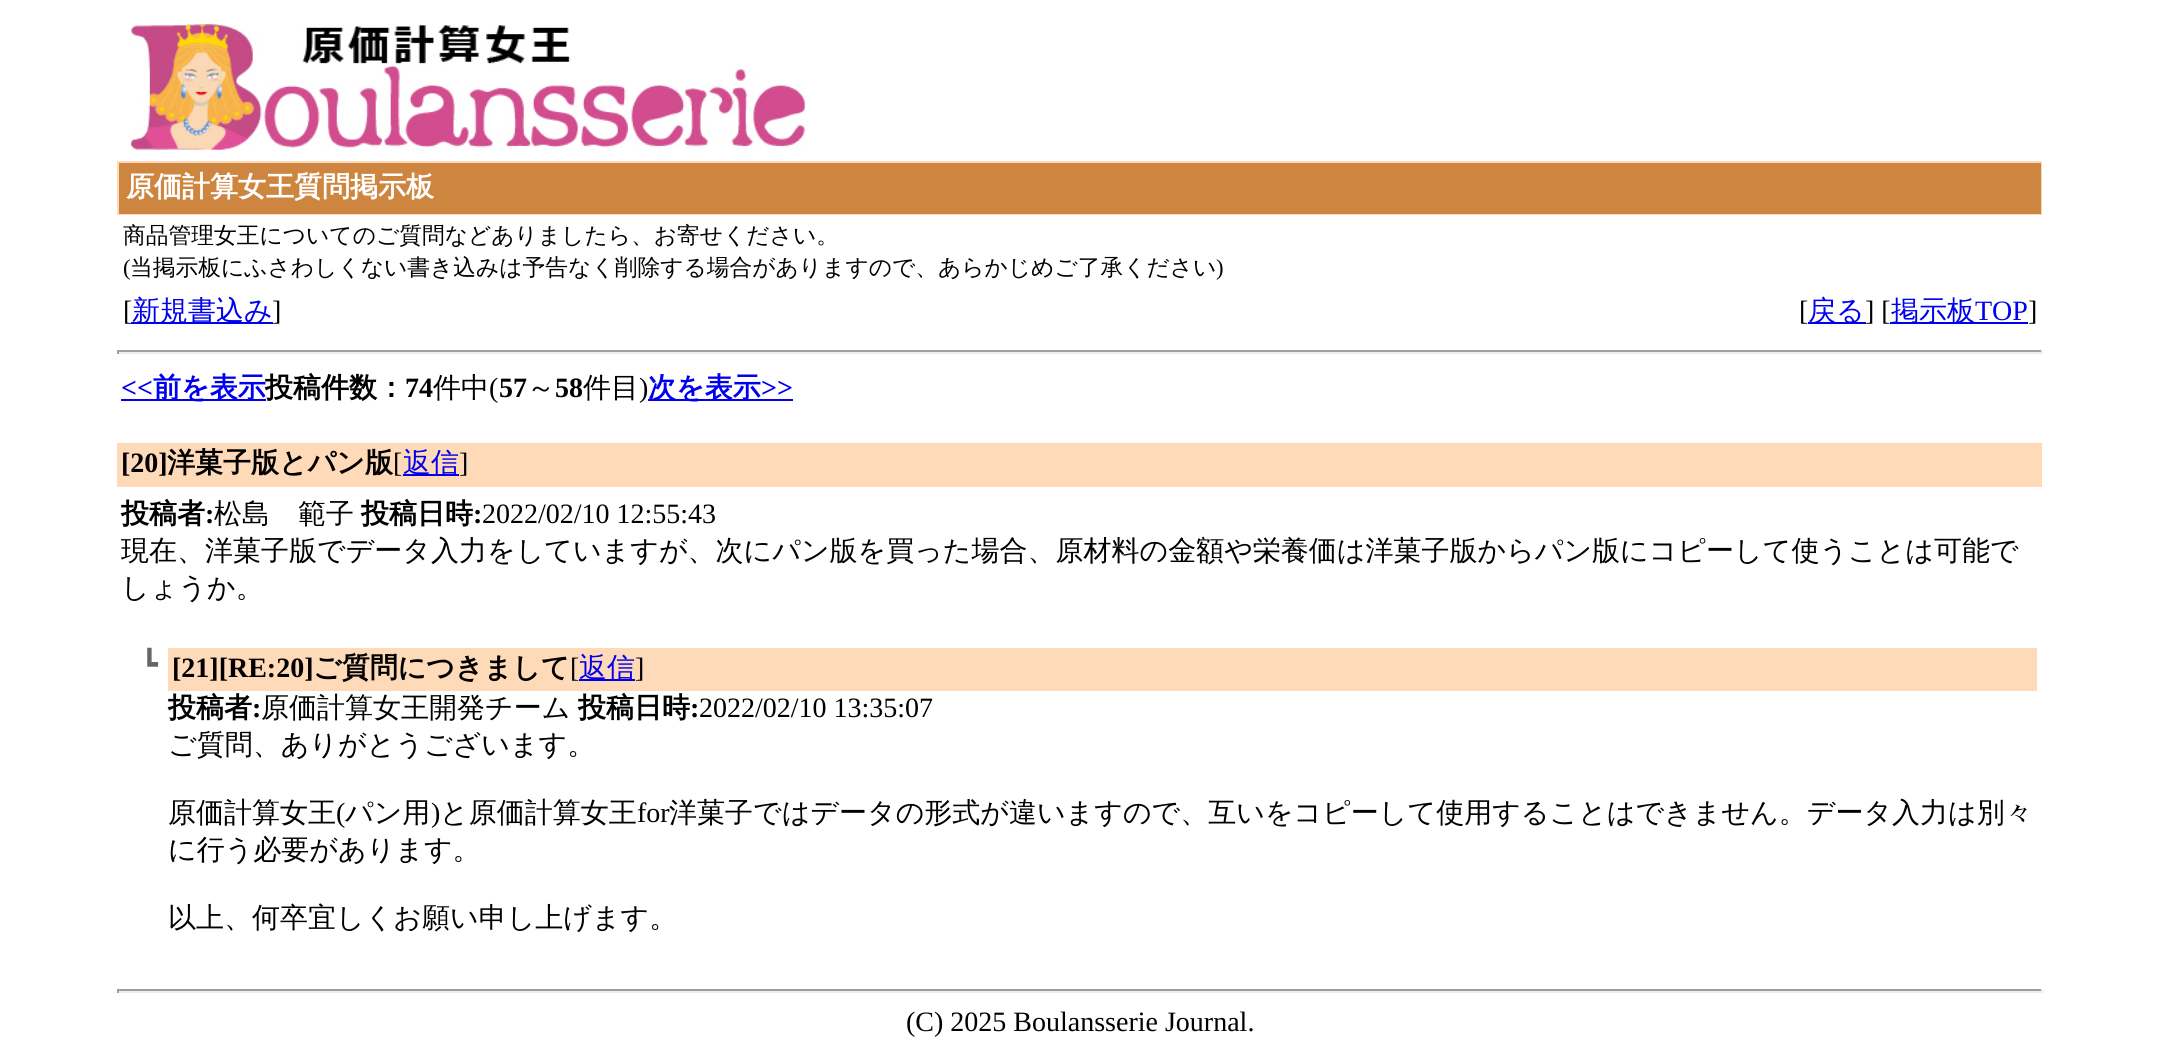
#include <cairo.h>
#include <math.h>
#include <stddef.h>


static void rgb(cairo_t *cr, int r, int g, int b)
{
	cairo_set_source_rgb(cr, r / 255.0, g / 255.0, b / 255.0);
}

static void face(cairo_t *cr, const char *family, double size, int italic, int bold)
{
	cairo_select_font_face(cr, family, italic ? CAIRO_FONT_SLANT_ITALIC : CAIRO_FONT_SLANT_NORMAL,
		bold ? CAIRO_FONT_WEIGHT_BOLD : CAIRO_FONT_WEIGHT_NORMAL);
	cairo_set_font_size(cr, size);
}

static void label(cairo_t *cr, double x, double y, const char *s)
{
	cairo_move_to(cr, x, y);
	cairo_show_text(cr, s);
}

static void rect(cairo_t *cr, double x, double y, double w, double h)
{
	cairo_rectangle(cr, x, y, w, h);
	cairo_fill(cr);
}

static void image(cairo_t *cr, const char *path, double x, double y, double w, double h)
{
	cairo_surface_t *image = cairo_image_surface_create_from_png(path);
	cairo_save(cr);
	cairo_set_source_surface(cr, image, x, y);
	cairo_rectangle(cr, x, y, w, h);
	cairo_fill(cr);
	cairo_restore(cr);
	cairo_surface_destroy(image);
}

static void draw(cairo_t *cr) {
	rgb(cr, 255, 255, 255);
	cairo_paint(cr);
	image(cr, "image0.png", 131, 24, 675, 126);
	cairo_rectangle(cr, 118, 162, 1923, 52);
	rgb(cr, 255, 218, 185);
	cairo_stroke(cr);
	rgb(cr, 205, 133, 63);
	rect(cr, 119, 163, 1922, 51);
	face(cr, "WenQuanYi Zen Hei", 28, 0, 1);
	rgb(cr, 255, 255, 255);
	label(cr, 126, 196, "原価計算女王質問掲示板");
	face(cr, "WenQuanYi Zen Hei Medium", 22.75, 0, 0);
	rgb(cr, 0, 0, 0);
	label(cr, 123, 243, "商品管理女王についてのご質問などありましたら、お寄せください。");
	face(cr, "Liberation Serif", 22.75, 0, 0);
	label(cr, 123, 275, "(");
	face(cr, "WenQuanYi Zen Hei Medium", 22.75, 0, 0);
	label(cr, 130, 275, "当掲示板にふさわしくない書き込みは予告なく削除する場合がありますので、あらかじめご了承ください");
	face(cr, "Liberation Serif", 22.75, 0, 0);
	label(cr, 1216, 275, ")");
	face(cr, "Liberation Serif", 28, 0, 0);
	label(cr, 123, 320, "[");
	rgb(cr, 0, 0, 238);
	rect(cr, 131, 322, 142, 2);
	face(cr, "WenQuanYi Zen Hei Medium", 28, 0, 0);
	label(cr, 132, 320, "新規書込み");
	face(cr, "Liberation Serif", 28, 0, 0);
	rgb(cr, 0, 0, 0);
	label(cr, 272, 320, "]");
	label(cr, 1799, 320, "[");
	rgb(cr, 0, 0, 238);
	rect(cr, 1808, 322, 58, 2);
	face(cr, "WenQuanYi Zen Hei Medium", 28, 0, 0);
	label(cr, 1808, 320, "戻る");
	face(cr, "Liberation Serif", 28, 0, 0);
	rgb(cr, 0, 0, 0);
	label(cr, 1865, 320, "] [");
	rgb(cr, 0, 0, 238);
	rect(cr, 1890, 322, 138, 2);
	face(cr, "WenQuanYi Zen Hei Medium", 28, 0, 0);
	label(cr, 1891, 320, "掲示板");
	face(cr, "Liberation Serif", 28, 0, 0);
	label(cr, 1975, 320, "TOP");
	rgb(cr, 0, 0, 0);
	label(cr, 2028, 320, "]");
	rgb(cr, 159, 159, 159);
	rect(cr, 117, 350, 1925, 2);
	rgb(cr, 238, 238, 238);
	rect(cr, 2041, 350, 2, 4);
	rect(cr, 117, 352, 1925, 2);
	rgb(cr, 159, 159, 159);
	rect(cr, 117, 350, 2, 4);
	face(cr, "Liberation Serif", 28, 0, 1);
	rgb(cr, 0, 0, 238);
	label(cr, 121, 397, "<<");
	rect(cr, 121, 399, 145, 2);
	face(cr, "WenQuanYi Zen Hei", 28, 0, 1);
	label(cr, 153, 397, "前を表示");
	rgb(cr, 0, 0, 0);
	label(cr, 265, 397, "投稿件数：");
	face(cr, "Liberation Serif", 28, 0, 1);
	label(cr, 405, 397, "74");
	face(cr, "WenQuanYi Zen Hei Medium", 28, 0, 0);
	label(cr, 433, 397, "件中");
	face(cr, "Liberation Serif", 28, 0, 0);
	label(cr, 489, 397, "(");
	face(cr, "Liberation Serif", 28, 0, 1);
	label(cr, 499, 397, "57");
	face(cr, "WenQuanYi Zen Hei Medium", 28, 0, 0);
	label(cr, 527, 397, "～");
	face(cr, "Liberation Serif", 28, 0, 1);
	label(cr, 555, 397, "58");
	face(cr, "WenQuanYi Zen Hei Medium", 28, 0, 0);
	label(cr, 583, 397, "件目");
	face(cr, "Liberation Serif", 28, 0, 0);
	label(cr, 639, 397, ")");
	rgb(cr, 0, 0, 238);
	rect(cr, 648, 399, 145, 2);
	face(cr, "WenQuanYi Zen Hei", 28, 0, 1);
	label(cr, 648, 397, "次を表示");
	face(cr, "Liberation Serif", 28, 0, 1);
	label(cr, 761, 397, ">>");
	rgb(cr, 255, 218, 185);
	rect(cr, 117, 443, 1925, 44);
	rgb(cr, 0, 0, 0);
	label(cr, 121, 472, "[20]");
	face(cr, "WenQuanYi Zen Hei", 28, 0, 1);
	label(cr, 167, 472, "洋菓子版とパン版");
	face(cr, "Liberation Serif", 28, 0, 0);
	label(cr, 393, 472, "[");
	rgb(cr, 0, 0, 238);
	rect(cr, 403, 474, 56, 2);
	face(cr, "WenQuanYi Zen Hei Medium", 28, 0, 0);
	label(cr, 403, 472, "返信");
	face(cr, "Liberation Serif", 28, 0, 0);
	rgb(cr, 0, 0, 0);
	label(cr, 459, 472, "]");
	face(cr, "WenQuanYi Zen Hei", 28, 0, 1);
	label(cr, 121, 523, "投稿者");
	face(cr, "Liberation Serif", 28, 0, 1);
	label(cr, 205, 523, ":");
	face(cr, "WenQuanYi Zen Hei Medium", 28, 0, 0);
	label(cr, 214, 523, "松島　範子");
	face(cr, "WenQuanYi Zen Hei", 28, 0, 1);
	label(cr, 361, 523, "投稿日時");
	face(cr, "Liberation Serif", 28, 0, 1);
	label(cr, 473, 523, ":");
	face(cr, "Liberation Serif", 28, 0, 0);
	label(cr, 482, 523, "2022/02/10 12:55:43");
	face(cr, "WenQuanYi Zen Hei Medium", 28, 0, 0);
	label(cr, 121, 560, "現在、洋菓子版でデータ入力をしていますが、次にパン版を買った場合、原材料の金額や栄養価は洋菓子版からパン版にコピーして使うことは可能で");
	label(cr, 121, 597, "しょうか。");
	face(cr, "DejaVu Sans", 28, 0, 0);
	rgb(cr, 102, 102, 102);
	label(cr, 141, 674, "┗");
	rgb(cr, 255, 218, 185);
	rect(cr, 168, 648, 1869, 43);
	face(cr, "Liberation Serif", 28, 0, 1);
	rgb(cr, 0, 0, 0);
	label(cr, 172, 677, "[21][RE:20]");
	face(cr, "WenQuanYi Zen Hei", 28, 0, 1);
	label(cr, 313, 677, "ご質問につきまして");
	face(cr, "Liberation Serif", 28, 0, 0);
	label(cr, 570, 677, "[");
	rgb(cr, 0, 0, 238);
	rect(cr, 579, 679, 56, 2);
	face(cr, "WenQuanYi Zen Hei Medium", 28, 0, 0);
	label(cr, 579, 677, "返信");
	face(cr, "Liberation Serif", 28, 0, 0);
	rgb(cr, 0, 0, 0);
	label(cr, 635, 677, "]");
	face(cr, "WenQuanYi Zen Hei", 28, 0, 1);
	label(cr, 168, 717, "投稿者");
	face(cr, "Liberation Serif", 28, 0, 1);
	label(cr, 252, 717, ":");
	face(cr, "WenQuanYi Zen Hei Medium", 28, 0, 0);
	label(cr, 261, 717, "原価計算女王開発チーム");
	face(cr, "WenQuanYi Zen Hei", 28, 0, 1);
	label(cr, 578, 717, "投稿日時");
	face(cr, "Liberation Serif", 28, 0, 1);
	label(cr, 690, 717, ":");
	face(cr, "Liberation Serif", 28, 0, 0);
	label(cr, 699, 717, "2022/02/10 13:35:07");
	face(cr, "WenQuanYi Zen Hei Medium", 28, 0, 0);
	label(cr, 168, 754, "ご質問、ありがとうございます。");
	label(cr, 168, 822, "原価計算女王");
	face(cr, "Liberation Serif", 28, 0, 0);
	label(cr, 336, 822, "(");
	face(cr, "WenQuanYi Zen Hei Medium", 28, 0, 0);
	label(cr, 345, 822, "パン用");
	face(cr, "Liberation Serif", 28, 0, 0);
	label(cr, 431, 822, ")");
	face(cr, "WenQuanYi Zen Hei Medium", 28, 0, 0);
	label(cr, 440, 822, "と原価計算女王");
	face(cr, "Liberation Serif", 28, 0, 0);
	label(cr, 637, 822, "for");
	face(cr, "WenQuanYi Zen Hei Medium", 28, 0, 0);
	label(cr, 669, 822, "洋菓子ではデータの形式が違いますので、互いをコピーして使用することはできません。データ入力は別々");
	label(cr, 168, 859, "に行う必要があります。");
	label(cr, 168, 927, "以上、何卒宜しくお願い申し上げます。");
	rgb(cr, 159, 159, 159);
	rect(cr, 117, 989, 1925, 2);
	rgb(cr, 238, 238, 238);
	rect(cr, 2041, 989, 2, 4);
	rect(cr, 117, 991, 1925, 2);
	rgb(cr, 159, 159, 159);
	rect(cr, 117, 989, 2, 4);
	face(cr, "Liberation Serif", 28, 0, 0);
	rgb(cr, 0, 0, 0);
	label(cr, 906, 1031, "(C) 2025 Boulansserie Journal.");
}

int main(void) {
	cairo_surface_t *surface = cairo_image_surface_create(CAIRO_FORMAT_RGB24, 2158, 1057);
	cairo_t *cr = cairo_create(surface);
	cairo_font_options_t *options = cairo_font_options_create();
	cairo_font_options_set_hint_metrics(options, CAIRO_HINT_METRICS_OFF);
	cairo_font_options_set_hint_style(options, CAIRO_HINT_STYLE_NONE);
	cairo_set_font_options(cr, options);
	cairo_set_miter_limit(cr, 4);
	draw(cr);
	cairo_surface_write_to_png(surface, "render.png");
	cairo_font_options_destroy(options);
	cairo_destroy(cr);
	cairo_surface_destroy(surface);
	return 0;
}
